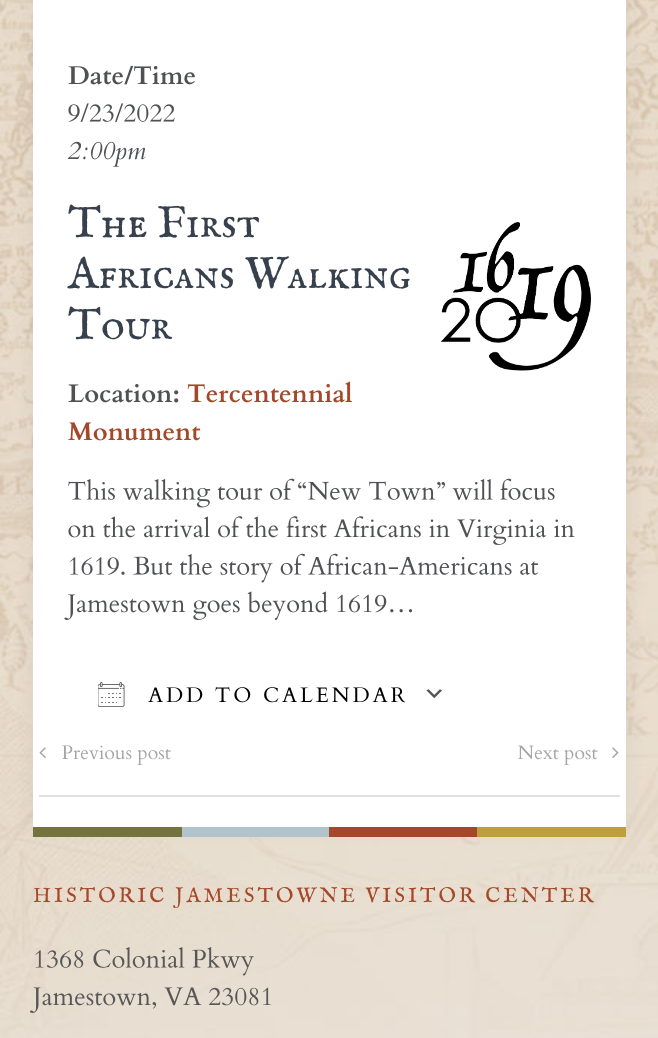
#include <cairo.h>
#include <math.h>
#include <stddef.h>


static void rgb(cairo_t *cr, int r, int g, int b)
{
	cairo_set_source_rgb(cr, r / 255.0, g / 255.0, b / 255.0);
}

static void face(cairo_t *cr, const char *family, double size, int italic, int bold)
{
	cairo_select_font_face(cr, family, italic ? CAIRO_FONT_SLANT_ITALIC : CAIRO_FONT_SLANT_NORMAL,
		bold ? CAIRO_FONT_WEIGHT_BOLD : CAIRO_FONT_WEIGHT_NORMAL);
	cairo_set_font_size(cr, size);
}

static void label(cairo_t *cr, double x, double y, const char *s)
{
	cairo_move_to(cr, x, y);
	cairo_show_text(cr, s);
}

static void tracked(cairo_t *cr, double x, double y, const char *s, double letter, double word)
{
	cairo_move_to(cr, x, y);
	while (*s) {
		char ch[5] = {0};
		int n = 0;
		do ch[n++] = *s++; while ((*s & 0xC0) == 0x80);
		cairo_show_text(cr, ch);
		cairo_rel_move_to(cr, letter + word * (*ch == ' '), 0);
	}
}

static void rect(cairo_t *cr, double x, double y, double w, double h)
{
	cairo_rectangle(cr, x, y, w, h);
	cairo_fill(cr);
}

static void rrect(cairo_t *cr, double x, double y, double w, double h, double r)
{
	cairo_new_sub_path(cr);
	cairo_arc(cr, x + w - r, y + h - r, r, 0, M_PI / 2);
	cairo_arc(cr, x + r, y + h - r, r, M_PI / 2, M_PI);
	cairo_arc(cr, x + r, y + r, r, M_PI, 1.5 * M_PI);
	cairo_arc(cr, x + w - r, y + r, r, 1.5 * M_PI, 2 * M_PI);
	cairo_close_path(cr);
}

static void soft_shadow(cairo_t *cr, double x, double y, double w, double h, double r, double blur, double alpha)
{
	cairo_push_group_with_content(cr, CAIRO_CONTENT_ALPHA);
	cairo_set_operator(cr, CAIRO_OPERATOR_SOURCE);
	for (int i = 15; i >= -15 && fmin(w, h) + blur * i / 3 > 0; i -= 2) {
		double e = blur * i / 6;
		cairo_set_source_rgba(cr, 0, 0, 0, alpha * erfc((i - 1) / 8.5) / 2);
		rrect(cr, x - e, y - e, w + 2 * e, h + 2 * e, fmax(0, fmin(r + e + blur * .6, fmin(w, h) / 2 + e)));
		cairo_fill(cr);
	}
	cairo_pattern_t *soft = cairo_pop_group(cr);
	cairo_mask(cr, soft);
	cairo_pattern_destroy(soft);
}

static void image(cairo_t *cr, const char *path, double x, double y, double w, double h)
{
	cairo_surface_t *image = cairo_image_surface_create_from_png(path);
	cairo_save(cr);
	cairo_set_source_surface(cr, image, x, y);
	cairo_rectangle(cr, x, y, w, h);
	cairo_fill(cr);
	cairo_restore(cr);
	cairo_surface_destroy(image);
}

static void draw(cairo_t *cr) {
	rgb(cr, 255, 255, 255);
	cairo_paint(cr);
	image(cr, "image0.png", 0, 0, 658, 1038);
	rgb(cr, 0, 0, 0);
	soft_shadow(cr, 33, -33, 593, 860, 0, 11, 0.06);
	rgb(cr, 255, 255, 255);
	rect(cr, 33, 0, 593, 827);
	face(cr, "Cardo", 25.5, 0, 1);
	rgb(cr, 79, 81, 84);
	label(cr, 68, 84, "Date/Time");
	image(cr, "image1.png", 68, 103, 107, 19);
	face(cr, "Cardo", 25.5, 1, 0);
	label(cr, 68, 159, "2:00pm");
	face(cr, "IM FELL English SC", 45, 0, 0);
	rgb(cr, 55, 65, 78);
	label(cr, 68, 237, "The First");
	image(cr, "image2.png", 441, 222, 150, 149);
	label(cr, 68, 288, "Africans Walking");
	label(cr, 68, 339, "Tour");
	face(cr, "Cardo", 25.5, 0, 1);
	rgb(cr, 79, 81, 84);
	label(cr, 68, 402, "Location:");
	rgb(cr, 164, 72, 41);
	label(cr, 187, 402, "Tercentennial");
	label(cr, 68, 440, "Monument");
	image(cr, "image3.png", 68, 478, 487, 30);
	image(cr, "image4.png", 68, 516, 507, 29);
	image(cr, "image5.png", 70, 553, 469, 30);
	image(cr, "image6.png", 64, 591, 349, 29);
	image(cr, "image7.png", 426, 689, 16, 10);
	image(cr, "image8.png", 98, 682, 27, 25);
	image(cr, "image9.png", 148, 687, 257, 16);
	rgb(cr, 224, 224, 224);
	rect(cr, 39, 795, 581, 2);
	image(cr, "image10.png", 39, 747, 7, 11);
	image(cr, "image11.png", 62, 745, 109, 20);
	image(cr, "image12.png", 518, 745, 80, 20);
	image(cr, "image13.png", 612, 747, 7, 11);
	rgb(cr, 116, 115, 63);
	rect(cr, 33, 827, 149, 10);
	rgb(cr, 177, 195, 205);
	rect(cr, 182, 827, 147, 10);
	rgb(cr, 164, 72, 41);
	rect(cr, 329, 827, 148, 10);
	rgb(cr, 189, 159, 62);
	rect(cr, 477, 827, 149, 10);
	face(cr, "IM FELL English SC", 21, 0, 0);
	rgb(cr, 164, 72, 41);
	tracked(cr, 33, 902, "HISTORIC JAMESTOWNE VISITOR CENTER", 3, 0);
	image(cr, "image14.png", 35, 947, 219, 29);
	image(cr, "image15.png", 29, 987, 242, 26);
}

int main(void) {
	cairo_surface_t *surface = cairo_image_surface_create(CAIRO_FORMAT_RGB24, 658, 1038);
	cairo_t *cr = cairo_create(surface);
	cairo_font_options_t *options = cairo_font_options_create();
	cairo_font_options_set_hint_metrics(options, CAIRO_HINT_METRICS_OFF);
	cairo_font_options_set_hint_style(options, CAIRO_HINT_STYLE_NONE);
	cairo_set_font_options(cr, options);
	cairo_set_miter_limit(cr, 4);
	draw(cr);
	cairo_surface_write_to_png(surface, "render.png");
	cairo_font_options_destroy(options);
	cairo_destroy(cr);
	cairo_surface_destroy(surface);
	return 0;
}
